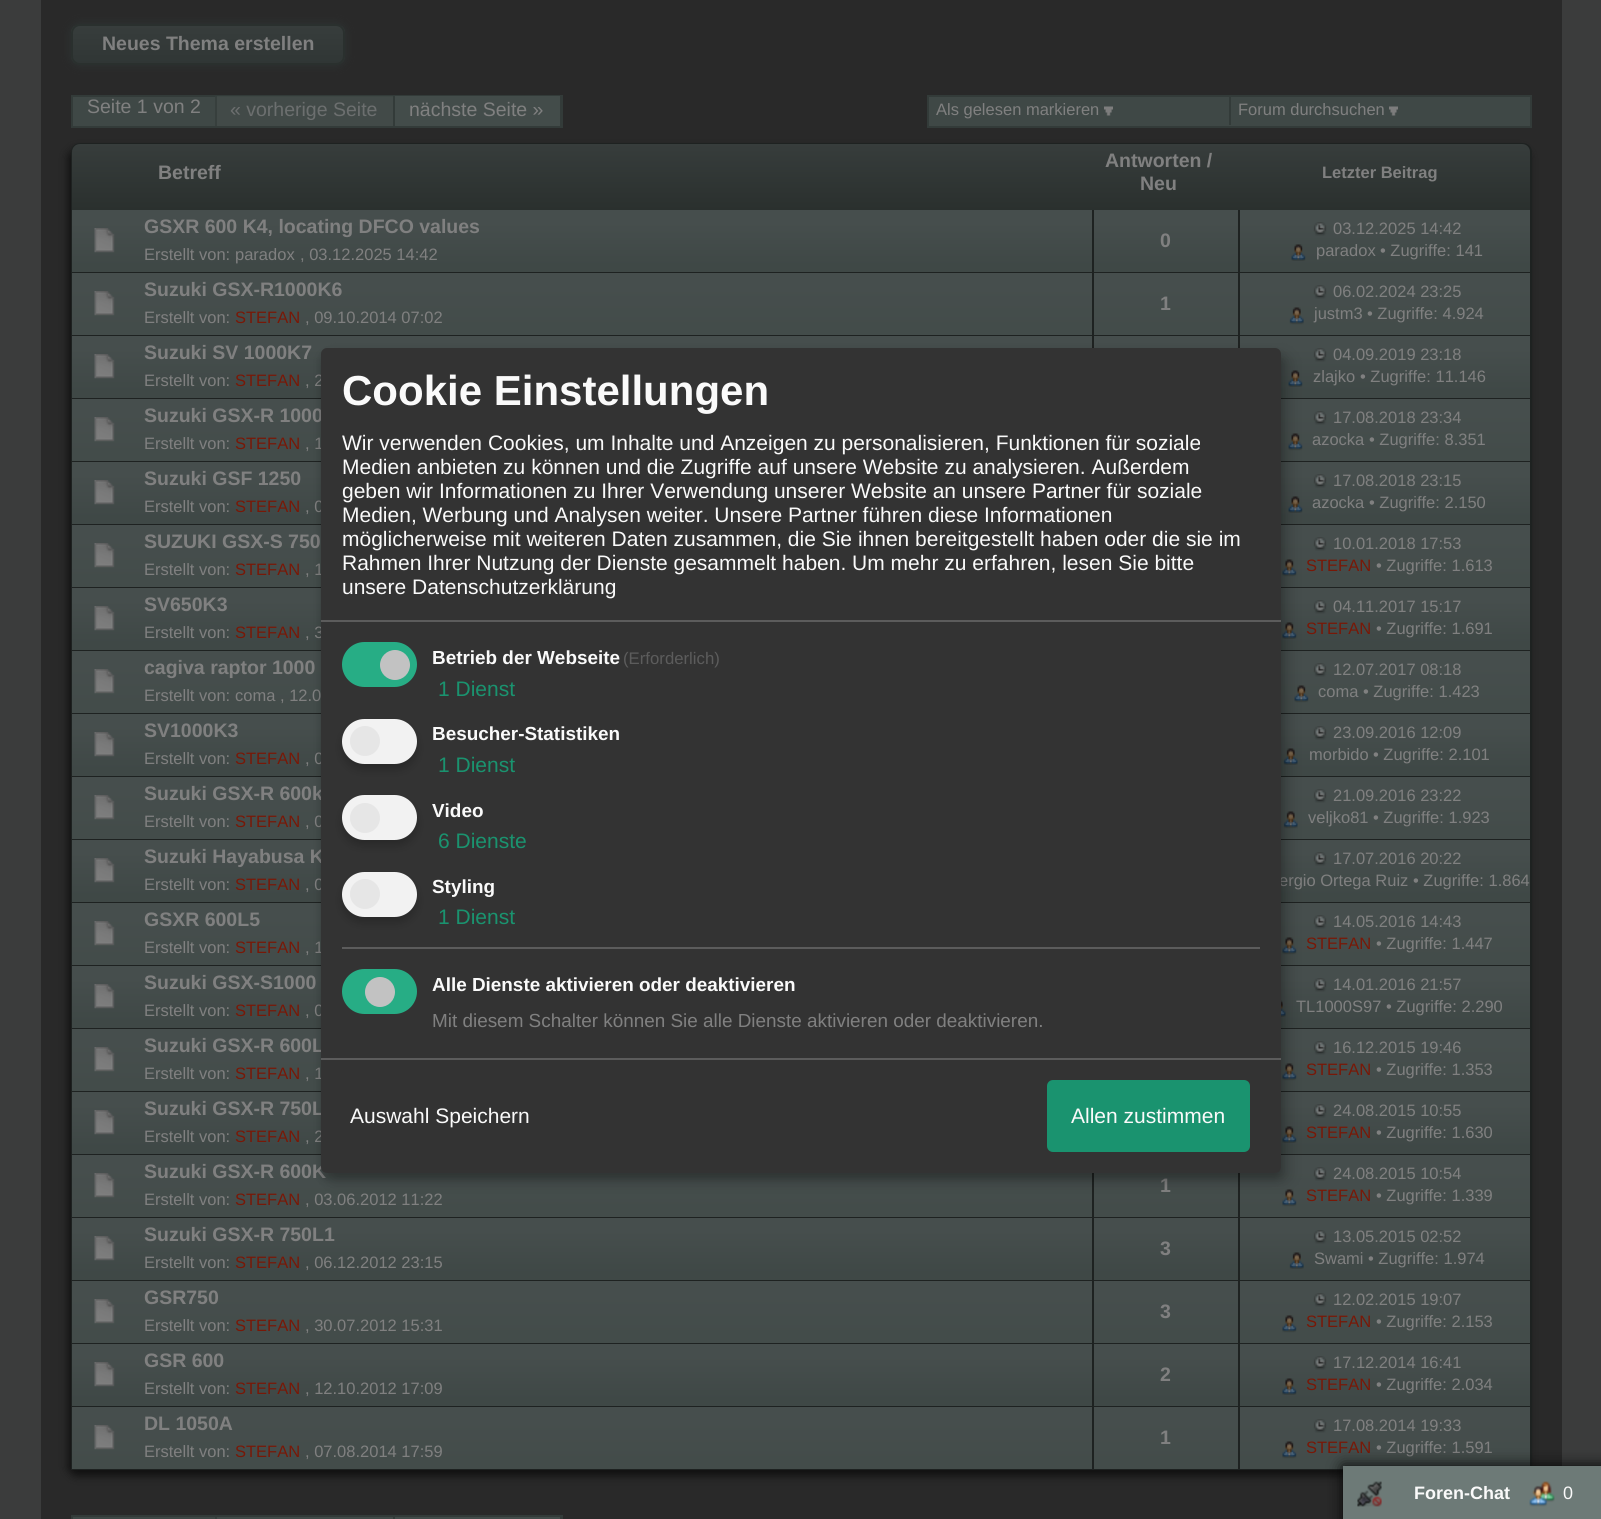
#include <cairo.h>
#include <math.h>
#include <stddef.h>


static void rgb(cairo_t *cr, int r, int g, int b)
{
	cairo_set_source_rgb(cr, r / 255.0, g / 255.0, b / 255.0);
}

static void face(cairo_t *cr, const char *family, double size, int italic, int bold)
{
	cairo_select_font_face(cr, family, italic ? CAIRO_FONT_SLANT_ITALIC : CAIRO_FONT_SLANT_NORMAL,
		bold ? CAIRO_FONT_WEIGHT_BOLD : CAIRO_FONT_WEIGHT_NORMAL);
	cairo_set_font_size(cr, size);
}

static void label(cairo_t *cr, double x, double y, const char *s)
{
	cairo_move_to(cr, x, y);
	cairo_show_text(cr, s);
}

static void rect(cairo_t *cr, double x, double y, double w, double h)
{
	cairo_rectangle(cr, x, y, w, h);
	cairo_fill(cr);
}

static void rrect(cairo_t *cr, double x, double y, double w, double h, double r)
{
	cairo_new_sub_path(cr);
	cairo_arc(cr, x + w - r, y + h - r, r, 0, M_PI / 2);
	cairo_arc(cr, x + r, y + h - r, r, M_PI / 2, M_PI);
	cairo_arc(cr, x + r, y + r, r, M_PI, 1.5 * M_PI);
	cairo_arc(cr, x + w - r, y + r, r, 1.5 * M_PI, 2 * M_PI);
	cairo_close_path(cr);
}

static void soft_shadow(cairo_t *cr, double x, double y, double w, double h, double r, double blur, double alpha)
{
	cairo_push_group_with_content(cr, CAIRO_CONTENT_ALPHA);
	cairo_set_operator(cr, CAIRO_OPERATOR_SOURCE);
	for (int i = 15; i >= -15 && fmin(w, h) + blur * i / 3 > 0; i -= 2) {
		double e = blur * i / 6;
		cairo_set_source_rgba(cr, 0, 0, 0, alpha * erfc((i - 1) / 8.5) / 2);
		rrect(cr, x - e, y - e, w + 2 * e, h + 2 * e, fmax(0, fmin(r + e + blur * .6, fmin(w, h) / 2 + e)));
		cairo_fill(cr);
	}
	cairo_pattern_t *soft = cairo_pop_group(cr);
	cairo_mask(cr, soft);
	cairo_pattern_destroy(soft);
}

static void image(cairo_t *cr, const char *path, double x, double y, double w, double h)
{
	cairo_surface_t *image = cairo_image_surface_create_from_png(path);
	cairo_save(cr);
	cairo_set_source_surface(cr, image, x, y);
	cairo_rectangle(cr, x, y, w, h);
	cairo_fill(cr);
	cairo_restore(cr);
	cairo_surface_destroy(image);
}

static void draw(cairo_t *cr) {
	cairo_pattern_t *gradient;
	rgb(cr, 59, 60, 60);
	cairo_paint(cr);
	rgb(cr, 41, 41, 41);
	rect(cr, 41, 0, 1521, 1519);
	rgb(cr, 45, 52, 51);
	soft_shadow(cr, 71, 24, 274, 41, 9, 4.5, 1);
	cairo_save(cr);
	rrect(cr, 71, 24, 274, 41, 9);
	cairo_clip(cr);
	gradient = cairo_pattern_create_linear(72, 26, 72, 63);
	cairo_pattern_add_color_stop_rgba(gradient, 0, 0.216, 0.239, 0.235, 1);
	cairo_pattern_add_color_stop_rgba(gradient, 1, 0.188, 0.212, 0.208, 1);
	cairo_set_source(cr, gradient);
	cairo_pattern_destroy(gradient);
	rect(cr, 71, 26, 274, 37);
	cairo_restore(cr);
	rrect(cr, 72, 25, 272, 39, 8);
	rgb(cr, 42, 48, 46);
	cairo_stroke(cr);
	face(cr, "Liberation Sans", 19.5, 0, 1);
	rgb(cr, 128, 128, 128);
	label(cr, 102, 50, "Neues Thema erstellen");
	rgb(cr, 63, 72, 70);
	rect(cr, 73, 97, 320, 29);
	cairo_rectangle(cr, 72, 96, 490, 31);
	rgb(cr, 51, 59, 57);
	cairo_stroke(cr);
	face(cr, "Liberation Sans", 19.5, 0, 0);
	rgb(cr, 128, 128, 128);
	label(cr, 87, 113, "Seite 1 von 2");
	cairo_set_source_rgba(cr, 0.263, 0.298, 0.29, 0.7);
	rect(cr, 215, 96, 178, 30);
	rgb(cr, 51, 59, 57);
	rect(cr, 393, 96, 2, 30);
	cairo_set_source_rgba(cr, 0.2, 0.231, 0.224, 0.7);
	rect(cr, 215, 96, 2, 30);
	rgb(cr, 108, 111, 111);
	label(cr, 230, 116, "« vorherige Seite");
	rgb(cr, 67, 76, 74);
	rect(cr, 395, 96, 165, 30);
	rgb(cr, 51, 59, 57);
	rect(cr, 560, 96, 1, 30);
	rgb(cr, 128, 128, 128);
	label(cr, 409, 116, "nächste Seite »");
	rgb(cr, 63, 72, 70);
	cairo_rectangle(cr, 928, 96, 603, 31);
	cairo_fill_preserve(cr);
	rgb(cr, 51, 59, 57);
	cairo_stroke(cr);
	face(cr, "Liberation Sans", 16.5, 0, 0);
	rgb(cr, 128, 128, 128);
	label(cr, 936, 115, "Als gelesen markieren");
	image(cr, "image0.png", 1104, 106, 9, 10);
	rgb(cr, 51, 59, 57);
	rect(cr, 1229, 96, 2, 29);
	rgb(cr, 128, 128, 128);
	label(cr, 1238, 115, "Forum durchsuchen");
	image(cr, "image1.png", 1389, 106, 9, 10);
	rgb(cr, 16, 16, 16);
	soft_shadow(cr, 68, 149, 1461, 1327, 9, 4.5, 1);
	cairo_new_path(cr);
	cairo_move_to(cr, 80, 144);
	cairo_line_to(cr, 1523, 144);
	cairo_curve_to(cr, 1527.5, 144, 1531, 147.5, 1531, 152);
	cairo_line_to(cr, 1531, 1469);
	cairo_line_to(cr, 72, 1469);
	cairo_line_to(cr, 72, 152);
	cairo_curve_to(cr, 72, 147.5, 75.5, 144, 80, 144);
	cairo_close_path(cr);
	rgb(cr, 30, 34, 33);
	cairo_stroke(cr);
	gradient = cairo_pattern_create_linear(291, 265, 291, 222);
	cairo_pattern_add_color_stop_rgba(gradient, 0, 0.247, 0.282, 0.275, 1);
	cairo_pattern_add_color_stop_rgba(gradient, 1, 0.275, 0.306, 0.302, 1);
	cairo_set_source(cr, gradient);
	cairo_pattern_destroy(gradient);
	rect(cr, 72, 210, 1458, 62);
	rgb(cr, 30, 34, 33);
	rect(cr, 1092, 209, 2, 63);
	rect(cr, 1238, 209, 2, 63);
	gradient = cairo_pattern_create_linear(72, 144, 72, 210);
	cairo_pattern_add_color_stop_rgba(gradient, 0, 0.216, 0.239, 0.235, 1);
	cairo_pattern_add_color_stop_rgba(gradient, 1, 0.165, 0.188, 0.18, 1);
	cairo_set_source(cr, gradient);
	cairo_pattern_destroy(gradient);
	cairo_new_path(cr);
	cairo_move_to(cr, 80, 144);
	cairo_line_to(cr, 1522, 144);
	cairo_curve_to(cr, 1526.5, 144, 1530, 147.5, 1530, 152);
	cairo_line_to(cr, 1530, 210);
	cairo_line_to(cr, 72, 210);
	cairo_line_to(cr, 72, 152);
	cairo_curve_to(cr, 72, 147.5, 75.5, 144, 80, 144);
	cairo_close_path(cr);
	cairo_fill(cr);
	face(cr, "Liberation Sans", 19.5, 0, 1);
	rgb(cr, 128, 128, 128);
	label(cr, 158, 179, "Betreff");
	label(cr, 1105, 167, "Antworten /");
	label(cr, 1140, 190, "Neu");
	face(cr, "Liberation Sans", 16.5, 0, 1);
	label(cr, 1322, 178, "Letzter Beitrag");
	rgb(cr, 30, 34, 33);
	rect(cr, 72, 272, 1458, 1);
	image(cr, "image2.png", 94, 228, 21, 25);
	face(cr, "Liberation Sans", 19.5, 0, 1);
	rgb(cr, 128, 128, 128);
	label(cr, 144, 233, "GSXR 600 K4, locating DFCO values");
	face(cr, "Liberation Sans", 16.5, 0, 0);
	label(cr, 144, 260, "Erstellt von:");
	label(cr, 235, 260, "paradox");
	label(cr, 300, 260, ", 03.12.2025 14:42");
	face(cr, "Liberation Sans", 19.5, 0, 1);
	label(cr, 1160, 247, "0");
	image(cr, "image3.png", 1313, 222, 14, 14);
	face(cr, "Liberation Sans", 16.5, 0, 0);
	label(cr, 1333, 234, "03.12.2025 14:42");
	image(cr, "image4.png", 1291, 244, 15, 17);
	label(cr, 1316, 256, "paradox");
	label(cr, 1380, 256, "• Zugriffe: 141");
	gradient = cairo_pattern_create_linear(291, 328, 291, 285);
	cairo_pattern_add_color_stop_rgba(gradient, 0, 0.263, 0.298, 0.29, 1);
	cairo_pattern_add_color_stop_rgba(gradient, 1, 0.275, 0.306, 0.302, 1);
	cairo_set_source(cr, gradient);
	cairo_pattern_destroy(gradient);
	rect(cr, 72, 273, 1458, 62);
	rgb(cr, 30, 34, 33);
	rect(cr, 72, 335, 1458, 1);
	image(cr, "image5.png", 94, 291, 21, 25);
	rect(cr, 1092, 272, 2, 63);
	face(cr, "Liberation Sans", 19.5, 0, 1);
	rgb(cr, 128, 128, 128);
	label(cr, 144, 296, "Suzuki GSX-R1000K6");
	face(cr, "Liberation Sans", 16.5, 0, 0);
	label(cr, 144, 323, "Erstellt von:");
	rgb(cr, 120, 24, 7);
	label(cr, 235, 323, "STEFAN");
	rgb(cr, 128, 128, 128);
	label(cr, 305, 323, ", 09.10.2014 07:02");
	rgb(cr, 30, 34, 33);
	rect(cr, 1238, 272, 2, 63);
	face(cr, "Liberation Sans", 19.5, 0, 1);
	rgb(cr, 128, 128, 128);
	label(cr, 1160, 310, "1");
	image(cr, "image6.png", 1313, 285, 14, 14);
	face(cr, "Liberation Sans", 16.5, 0, 0);
	label(cr, 1333, 297, "06.02.2024 23:25");
	image(cr, "image7.png", 1289, 307, 15, 18);
	label(cr, 1314, 319, "justm3");
	label(cr, 1367, 319, "• Zugriffe: 4.924");
	gradient = cairo_pattern_create_linear(291, 391, 291, 348);
	cairo_pattern_add_color_stop_rgba(gradient, 0, 0.247, 0.282, 0.275, 1);
	cairo_pattern_add_color_stop_rgba(gradient, 1, 0.275, 0.306, 0.302, 1);
	cairo_set_source(cr, gradient);
	cairo_pattern_destroy(gradient);
	rect(cr, 72, 336, 1458, 62);
	rgb(cr, 30, 34, 33);
	rect(cr, 72, 398, 1458, 1);
	rect(cr, 1238, 335, 2, 13);
	image(cr, "image2.png", 94, 354, 21, 25);
	rect(cr, 1092, 335, 2, 13);
	face(cr, "Liberation Sans", 19.5, 0, 1);
	rgb(cr, 128, 128, 128);
	label(cr, 144, 359, "Suzuki SV 1000K7");
	face(cr, "Liberation Sans", 16.5, 0, 0);
	label(cr, 144, 386, "Erstellt von:");
	rgb(cr, 120, 24, 7);
	label(cr, 235, 386, "STEFAN");
	rgb(cr, 128, 128, 128);
	label(cr, 305, 386, ", 2");
	image(cr, "image3.png", 1313, 348, 14, 14);
	label(cr, 1333, 360, "04.09.2019 23:18");
	image(cr, "image4.png", 1288, 370, 15, 17);
	label(cr, 1313, 382, "zlajko");
	label(cr, 1360, 382, "• Zugriffe: 11.146");
	gradient = cairo_pattern_create_linear(291, 454, 291, 411);
	cairo_pattern_add_color_stop_rgba(gradient, 0, 0.263, 0.298, 0.29, 1);
	cairo_pattern_add_color_stop_rgba(gradient, 1, 0.275, 0.306, 0.302, 1);
	cairo_set_source(cr, gradient);
	cairo_pattern_destroy(gradient);
	rect(cr, 72, 399, 1458, 62);
	rgb(cr, 30, 34, 33);
	rect(cr, 72, 461, 1458, 1);
	image(cr, "image5.png", 94, 417, 21, 25);
	face(cr, "Liberation Sans", 19.5, 0, 1);
	rgb(cr, 128, 128, 128);
	label(cr, 144, 422, "Suzuki GSX-R 1000");
	face(cr, "Liberation Sans", 16.5, 0, 0);
	label(cr, 144, 449, "Erstellt von:");
	rgb(cr, 120, 24, 7);
	label(cr, 235, 449, "STEFAN");
	rgb(cr, 128, 128, 128);
	label(cr, 305, 449, ", 1");
	image(cr, "image6.png", 1313, 411, 14, 14);
	label(cr, 1333, 423, "17.08.2018 23:34");
	image(cr, "image8.png", 1288, 433, 15, 18);
	label(cr, 1312, 445, "azocka");
	label(cr, 1369, 445, "• Zugriffe: 8.351");
	gradient = cairo_pattern_create_linear(291, 517, 291, 474);
	cairo_pattern_add_color_stop_rgba(gradient, 0, 0.247, 0.282, 0.275, 1);
	cairo_pattern_add_color_stop_rgba(gradient, 1, 0.275, 0.306, 0.302, 1);
	cairo_set_source(cr, gradient);
	cairo_pattern_destroy(gradient);
	rect(cr, 72, 462, 1458, 62);
	rgb(cr, 30, 34, 33);
	rect(cr, 72, 524, 1458, 1);
	image(cr, "image2.png", 94, 480, 21, 25);
	face(cr, "Liberation Sans", 19.5, 0, 1);
	rgb(cr, 128, 128, 128);
	label(cr, 144, 485, "Suzuki GSF 1250");
	face(cr, "Liberation Sans", 16.5, 0, 0);
	label(cr, 144, 512, "Erstellt von:");
	rgb(cr, 120, 24, 7);
	label(cr, 235, 512, "STEFAN");
	rgb(cr, 128, 128, 128);
	label(cr, 305, 512, ", 0");
	image(cr, "image3.png", 1313, 474, 14, 14);
	label(cr, 1333, 486, "17.08.2018 23:15");
	image(cr, "image4.png", 1288, 496, 15, 17);
	label(cr, 1312, 508, "azocka");
	label(cr, 1369, 508, "• Zugriffe: 2.150");
	gradient = cairo_pattern_create_linear(291, 580, 291, 537);
	cairo_pattern_add_color_stop_rgba(gradient, 0, 0.263, 0.298, 0.29, 1);
	cairo_pattern_add_color_stop_rgba(gradient, 1, 0.275, 0.306, 0.302, 1);
	cairo_set_source(cr, gradient);
	cairo_pattern_destroy(gradient);
	rect(cr, 72, 525, 1458, 62);
	rgb(cr, 30, 34, 33);
	rect(cr, 72, 587, 1458, 1);
	image(cr, "image5.png", 94, 543, 21, 25);
	face(cr, "Liberation Sans", 19.5, 0, 1);
	rgb(cr, 128, 128, 128);
	label(cr, 144, 548, "SUZUKI GSX-S 750");
	face(cr, "Liberation Sans", 16.5, 0, 0);
	label(cr, 144, 575, "Erstellt von:");
	rgb(cr, 120, 24, 7);
	label(cr, 235, 575, "STEFAN");
	rgb(cr, 128, 128, 128);
	label(cr, 305, 575, ", 1");
	image(cr, "image6.png", 1313, 537, 14, 14);
	label(cr, 1333, 549, "10.01.2018 17:53");
	image(cr, "image9.png", 1282, 559, 15, 18);
	rgb(cr, 120, 24, 7);
	label(cr, 1306, 571, "STEFAN");
	rgb(cr, 128, 128, 128);
	label(cr, 1376, 571, "• Zugriffe: 1.613");
	gradient = cairo_pattern_create_linear(291, 643, 291, 600);
	cairo_pattern_add_color_stop_rgba(gradient, 0, 0.247, 0.282, 0.275, 1);
	cairo_pattern_add_color_stop_rgba(gradient, 1, 0.275, 0.306, 0.302, 1);
	cairo_set_source(cr, gradient);
	cairo_pattern_destroy(gradient);
	rect(cr, 72, 588, 1458, 62);
	rgb(cr, 30, 34, 33);
	rect(cr, 72, 650, 1458, 1);
	image(cr, "image2.png", 94, 606, 21, 25);
	face(cr, "Liberation Sans", 19.5, 0, 1);
	rgb(cr, 128, 128, 128);
	label(cr, 144, 611, "SV650K3");
	face(cr, "Liberation Sans", 16.5, 0, 0);
	label(cr, 144, 638, "Erstellt von:");
	rgb(cr, 120, 24, 7);
	label(cr, 235, 638, "STEFAN");
	rgb(cr, 128, 128, 128);
	label(cr, 305, 638, ", 3");
	image(cr, "image3.png", 1313, 600, 14, 14);
	label(cr, 1333, 612, "04.11.2017 15:17");
	image(cr, "image10.png", 1282, 622, 15, 17);
	rgb(cr, 120, 24, 7);
	label(cr, 1306, 634, "STEFAN");
	rgb(cr, 128, 128, 128);
	label(cr, 1376, 634, "• Zugriffe: 1.691");
	gradient = cairo_pattern_create_linear(291, 706, 291, 663);
	cairo_pattern_add_color_stop_rgba(gradient, 0, 0.263, 0.298, 0.29, 1);
	cairo_pattern_add_color_stop_rgba(gradient, 1, 0.275, 0.306, 0.302, 1);
	cairo_set_source(cr, gradient);
	cairo_pattern_destroy(gradient);
	rect(cr, 72, 651, 1458, 62);
	rgb(cr, 30, 34, 33);
	rect(cr, 72, 713, 1458, 1);
	image(cr, "image5.png", 94, 669, 21, 25);
	face(cr, "Liberation Sans", 19.5, 0, 1);
	rgb(cr, 128, 128, 128);
	label(cr, 144, 674, "cagiva raptor 1000");
	face(cr, "Liberation Sans", 16.5, 0, 0);
	label(cr, 144, 701, "Erstellt von:");
	label(cr, 235, 701, "coma");
	label(cr, 280, 701, ", 12.0");
	image(cr, "image6.png", 1313, 663, 14, 14);
	label(cr, 1333, 675, "12.07.2017 08:18");
	image(cr, "image8.png", 1294, 685, 15, 18);
	label(cr, 1318, 697, "coma");
	label(cr, 1363, 697, "• Zugriffe: 1.423");
	gradient = cairo_pattern_create_linear(291, 769, 291, 726);
	cairo_pattern_add_color_stop_rgba(gradient, 0, 0.247, 0.282, 0.275, 1);
	cairo_pattern_add_color_stop_rgba(gradient, 1, 0.275, 0.306, 0.302, 1);
	cairo_set_source(cr, gradient);
	cairo_pattern_destroy(gradient);
	rect(cr, 72, 714, 1458, 62);
	rgb(cr, 30, 34, 33);
	rect(cr, 72, 776, 1458, 1);
	image(cr, "image2.png", 94, 732, 21, 25);
	face(cr, "Liberation Sans", 19.5, 0, 1);
	rgb(cr, 128, 128, 128);
	label(cr, 144, 737, "SV1000K3");
	face(cr, "Liberation Sans", 16.5, 0, 0);
	label(cr, 144, 764, "Erstellt von:");
	rgb(cr, 120, 24, 7);
	label(cr, 235, 764, "STEFAN");
	rgb(cr, 128, 128, 128);
	label(cr, 305, 764, ", 0");
	image(cr, "image3.png", 1313, 726, 14, 14);
	label(cr, 1333, 738, "23.09.2016 12:09");
	image(cr, "image11.png", 1283, 748, 15, 17);
	label(cr, 1309, 760, "morbido");
	label(cr, 1373, 760, "• Zugriffe: 2.101");
	gradient = cairo_pattern_create_linear(291, 832, 291, 789);
	cairo_pattern_add_color_stop_rgba(gradient, 0, 0.263, 0.298, 0.29, 1);
	cairo_pattern_add_color_stop_rgba(gradient, 1, 0.275, 0.306, 0.302, 1);
	cairo_set_source(cr, gradient);
	cairo_pattern_destroy(gradient);
	rect(cr, 72, 777, 1458, 62);
	rgb(cr, 30, 34, 33);
	rect(cr, 72, 839, 1458, 1);
	image(cr, "image5.png", 94, 795, 21, 25);
	face(cr, "Liberation Sans", 19.5, 0, 1);
	rgb(cr, 128, 128, 128);
	label(cr, 144, 800, "Suzuki GSX-R 600k");
	face(cr, "Liberation Sans", 16.5, 0, 0);
	label(cr, 144, 827, "Erstellt von:");
	rgb(cr, 120, 24, 7);
	label(cr, 235, 827, "STEFAN");
	rgb(cr, 128, 128, 128);
	label(cr, 305, 827, ", 0");
	image(cr, "image6.png", 1313, 789, 14, 14);
	label(cr, 1333, 801, "21.09.2016 23:22");
	image(cr, "image12.png", 1283, 811, 15, 18);
	label(cr, 1308, 823, "veljko81");
	label(cr, 1373, 823, "• Zugriffe: 1.923");
	gradient = cairo_pattern_create_linear(291, 895, 291, 852);
	cairo_pattern_add_color_stop_rgba(gradient, 0, 0.247, 0.282, 0.275, 1);
	cairo_pattern_add_color_stop_rgba(gradient, 1, 0.275, 0.306, 0.302, 1);
	cairo_set_source(cr, gradient);
	cairo_pattern_destroy(gradient);
	rect(cr, 72, 840, 1458, 62);
	rgb(cr, 30, 34, 33);
	rect(cr, 72, 902, 1458, 1);
	image(cr, "image2.png", 94, 858, 21, 25);
	face(cr, "Liberation Sans", 19.5, 0, 1);
	rgb(cr, 128, 128, 128);
	label(cr, 144, 863, "Suzuki Hayabusa K");
	face(cr, "Liberation Sans", 16.5, 0, 0);
	label(cr, 144, 890, "Erstellt von:");
	rgb(cr, 120, 24, 7);
	label(cr, 235, 890, "STEFAN");
	rgb(cr, 128, 128, 128);
	label(cr, 305, 890, ", 0");
	image(cr, "image3.png", 1313, 852, 14, 14);
	label(cr, 1333, 864, "17.07.2016 20:22");
	label(cr, 1279, 886, "ergio Ortega Ruiz");
	label(cr, 1413, 886, "• Zugriffe: 1.864");
	gradient = cairo_pattern_create_linear(291, 958, 291, 915);
	cairo_pattern_add_color_stop_rgba(gradient, 0, 0.263, 0.298, 0.29, 1);
	cairo_pattern_add_color_stop_rgba(gradient, 1, 0.275, 0.306, 0.302, 1);
	cairo_set_source(cr, gradient);
	cairo_pattern_destroy(gradient);
	rect(cr, 72, 903, 1458, 62);
	rgb(cr, 30, 34, 33);
	rect(cr, 72, 965, 1458, 1);
	image(cr, "image5.png", 94, 921, 21, 25);
	face(cr, "Liberation Sans", 19.5, 0, 1);
	rgb(cr, 128, 128, 128);
	label(cr, 144, 926, "GSXR 600L5");
	face(cr, "Liberation Sans", 16.5, 0, 0);
	label(cr, 144, 953, "Erstellt von:");
	rgb(cr, 120, 24, 7);
	label(cr, 235, 953, "STEFAN");
	rgb(cr, 128, 128, 128);
	label(cr, 305, 953, ", 1");
	image(cr, "image6.png", 1313, 915, 14, 14);
	label(cr, 1333, 927, "14.05.2016 14:43");
	image(cr, "image9.png", 1282, 937, 15, 18);
	rgb(cr, 120, 24, 7);
	label(cr, 1306, 949, "STEFAN");
	rgb(cr, 128, 128, 128);
	label(cr, 1376, 949, "• Zugriffe: 1.447");
	gradient = cairo_pattern_create_linear(291, 1021, 291, 978);
	cairo_pattern_add_color_stop_rgba(gradient, 0, 0.247, 0.282, 0.275, 1);
	cairo_pattern_add_color_stop_rgba(gradient, 1, 0.275, 0.306, 0.302, 1);
	cairo_set_source(cr, gradient);
	cairo_pattern_destroy(gradient);
	rect(cr, 72, 966, 1458, 62);
	rgb(cr, 30, 34, 33);
	rect(cr, 72, 1028, 1458, 1);
	image(cr, "image2.png", 94, 984, 21, 25);
	face(cr, "Liberation Sans", 19.5, 0, 1);
	rgb(cr, 128, 128, 128);
	label(cr, 144, 989, "Suzuki GSX-S1000");
	face(cr, "Liberation Sans", 16.5, 0, 0);
	label(cr, 144, 1016, "Erstellt von:");
	rgb(cr, 120, 24, 7);
	label(cr, 235, 1016, "STEFAN");
	rgb(cr, 128, 128, 128);
	label(cr, 305, 1016, ", 0");
	image(cr, "image3.png", 1313, 978, 14, 14);
	label(cr, 1333, 990, "14.01.2016 21:57");
	image(cr, "image13.png", 1281, 1000, 5, 17);
	label(cr, 1296, 1012, "TL1000S97");
	label(cr, 1386, 1012, "• Zugriffe: 2.290");
	gradient = cairo_pattern_create_linear(291, 1084, 291, 1041);
	cairo_pattern_add_color_stop_rgba(gradient, 0, 0.263, 0.298, 0.29, 1);
	cairo_pattern_add_color_stop_rgba(gradient, 1, 0.275, 0.306, 0.302, 1);
	cairo_set_source(cr, gradient);
	cairo_pattern_destroy(gradient);
	rect(cr, 72, 1029, 1458, 62);
	rgb(cr, 30, 34, 33);
	rect(cr, 72, 1091, 1458, 1);
	image(cr, "image5.png", 94, 1047, 21, 25);
	face(cr, "Liberation Sans", 19.5, 0, 1);
	rgb(cr, 128, 128, 128);
	label(cr, 144, 1052, "Suzuki GSX-R 600L");
	face(cr, "Liberation Sans", 16.5, 0, 0);
	label(cr, 144, 1079, "Erstellt von:");
	rgb(cr, 120, 24, 7);
	label(cr, 235, 1079, "STEFAN");
	rgb(cr, 128, 128, 128);
	label(cr, 305, 1079, ", 1");
	image(cr, "image6.png", 1313, 1041, 14, 14);
	label(cr, 1333, 1053, "16.12.2015 19:46");
	image(cr, "image9.png", 1282, 1063, 15, 18);
	rgb(cr, 120, 24, 7);
	label(cr, 1306, 1075, "STEFAN");
	rgb(cr, 128, 128, 128);
	label(cr, 1376, 1075, "• Zugriffe: 1.353");
	gradient = cairo_pattern_create_linear(291, 1147, 291, 1104);
	cairo_pattern_add_color_stop_rgba(gradient, 0, 0.247, 0.282, 0.275, 1);
	cairo_pattern_add_color_stop_rgba(gradient, 1, 0.275, 0.306, 0.302, 1);
	cairo_set_source(cr, gradient);
	cairo_pattern_destroy(gradient);
	rect(cr, 72, 1092, 1458, 62);
	rgb(cr, 30, 34, 33);
	rect(cr, 72, 1154, 1458, 1);
	image(cr, "image2.png", 94, 1110, 21, 25);
	face(cr, "Liberation Sans", 19.5, 0, 1);
	rgb(cr, 128, 128, 128);
	label(cr, 144, 1115, "Suzuki GSX-R 750L");
	face(cr, "Liberation Sans", 16.5, 0, 0);
	label(cr, 144, 1142, "Erstellt von:");
	rgb(cr, 120, 24, 7);
	label(cr, 235, 1142, "STEFAN");
	rgb(cr, 128, 128, 128);
	label(cr, 305, 1142, ", 2");
	image(cr, "image3.png", 1313, 1104, 14, 14);
	label(cr, 1333, 1116, "24.08.2015 10:55");
	image(cr, "image10.png", 1282, 1126, 15, 17);
	rgb(cr, 120, 24, 7);
	label(cr, 1306, 1138, "STEFAN");
	rgb(cr, 128, 128, 128);
	label(cr, 1376, 1138, "• Zugriffe: 1.630");
	gradient = cairo_pattern_create_linear(291, 1210, 291, 1167);
	cairo_pattern_add_color_stop_rgba(gradient, 0, 0.263, 0.298, 0.29, 1);
	cairo_pattern_add_color_stop_rgba(gradient, 1, 0.275, 0.306, 0.302, 1);
	cairo_set_source(cr, gradient);
	cairo_pattern_destroy(gradient);
	rect(cr, 72, 1155, 1458, 62);
	rgb(cr, 30, 34, 33);
	rect(cr, 72, 1217, 1458, 1);
	image(cr, "image5.png", 94, 1173, 21, 25);
	rect(cr, 1092, 1173, 2, 44);
	face(cr, "Liberation Sans", 19.5, 0, 1);
	rgb(cr, 128, 128, 128);
	label(cr, 144, 1178, "Suzuki GSX-R 600K");
	face(cr, "Liberation Sans", 16.5, 0, 0);
	label(cr, 144, 1205, "Erstellt von:");
	rgb(cr, 120, 24, 7);
	label(cr, 235, 1205, "STEFAN");
	rgb(cr, 128, 128, 128);
	label(cr, 305, 1205, ", 03.06.2012 11:22");
	rgb(cr, 30, 34, 33);
	rect(cr, 1238, 1173, 2, 44);
	face(cr, "Liberation Sans", 19.5, 0, 1);
	rgb(cr, 128, 128, 128);
	label(cr, 1160, 1192, "1");
	image(cr, "image6.png", 1313, 1167, 14, 14);
	face(cr, "Liberation Sans", 16.5, 0, 0);
	label(cr, 1333, 1179, "24.08.2015 10:54");
	image(cr, "image9.png", 1282, 1189, 15, 18);
	rgb(cr, 120, 24, 7);
	label(cr, 1306, 1201, "STEFAN");
	rgb(cr, 128, 128, 128);
	label(cr, 1376, 1201, "• Zugriffe: 1.339");
	gradient = cairo_pattern_create_linear(291, 1273, 291, 1230);
	cairo_pattern_add_color_stop_rgba(gradient, 0, 0.247, 0.282, 0.275, 1);
	cairo_pattern_add_color_stop_rgba(gradient, 1, 0.275, 0.306, 0.302, 1);
	cairo_set_source(cr, gradient);
	cairo_pattern_destroy(gradient);
	rect(cr, 72, 1218, 1458, 62);
	rgb(cr, 30, 34, 33);
	rect(cr, 72, 1280, 1458, 1);
	image(cr, "image2.png", 94, 1236, 21, 25);
	rect(cr, 1092, 1217, 2, 63);
	face(cr, "Liberation Sans", 19.5, 0, 1);
	rgb(cr, 128, 128, 128);
	label(cr, 144, 1241, "Suzuki GSX-R 750L1");
	face(cr, "Liberation Sans", 16.5, 0, 0);
	label(cr, 144, 1268, "Erstellt von:");
	rgb(cr, 120, 24, 7);
	label(cr, 235, 1268, "STEFAN");
	rgb(cr, 128, 128, 128);
	label(cr, 305, 1268, ", 06.12.2012 23:15");
	rgb(cr, 30, 34, 33);
	rect(cr, 1238, 1217, 2, 63);
	face(cr, "Liberation Sans", 19.5, 0, 1);
	rgb(cr, 128, 128, 128);
	label(cr, 1160, 1255, "3");
	image(cr, "image3.png", 1313, 1230, 14, 14);
	face(cr, "Liberation Sans", 16.5, 0, 0);
	label(cr, 1333, 1242, "13.05.2015 02:52");
	image(cr, "image14.png", 1289, 1252, 15, 17);
	label(cr, 1314, 1264, "Swami");
	label(cr, 1368, 1264, "• Zugriffe: 1.974");
	gradient = cairo_pattern_create_linear(291, 1336, 291, 1293);
	cairo_pattern_add_color_stop_rgba(gradient, 0, 0.263, 0.298, 0.29, 1);
	cairo_pattern_add_color_stop_rgba(gradient, 1, 0.275, 0.306, 0.302, 1);
	cairo_set_source(cr, gradient);
	cairo_pattern_destroy(gradient);
	rect(cr, 72, 1281, 1458, 62);
	rgb(cr, 30, 34, 33);
	rect(cr, 72, 1343, 1458, 1);
	image(cr, "image5.png", 94, 1299, 21, 25);
	rect(cr, 1092, 1280, 2, 63);
	face(cr, "Liberation Sans", 19.5, 0, 1);
	rgb(cr, 128, 128, 128);
	label(cr, 144, 1304, "GSR750");
	face(cr, "Liberation Sans", 16.5, 0, 0);
	label(cr, 144, 1331, "Erstellt von:");
	rgb(cr, 120, 24, 7);
	label(cr, 235, 1331, "STEFAN");
	rgb(cr, 128, 128, 128);
	label(cr, 305, 1331, ", 30.07.2012 15:31");
	rgb(cr, 30, 34, 33);
	rect(cr, 1238, 1280, 2, 63);
	face(cr, "Liberation Sans", 19.5, 0, 1);
	rgb(cr, 128, 128, 128);
	label(cr, 1160, 1318, "3");
	image(cr, "image6.png", 1313, 1293, 14, 14);
	face(cr, "Liberation Sans", 16.5, 0, 0);
	label(cr, 1333, 1305, "12.02.2015 19:07");
	image(cr, "image9.png", 1282, 1315, 15, 18);
	rgb(cr, 120, 24, 7);
	label(cr, 1306, 1327, "STEFAN");
	rgb(cr, 128, 128, 128);
	label(cr, 1376, 1327, "• Zugriffe: 2.153");
	gradient = cairo_pattern_create_linear(291, 1399, 291, 1356);
	cairo_pattern_add_color_stop_rgba(gradient, 0, 0.247, 0.282, 0.275, 1);
	cairo_pattern_add_color_stop_rgba(gradient, 1, 0.275, 0.306, 0.302, 1);
	cairo_set_source(cr, gradient);
	cairo_pattern_destroy(gradient);
	rect(cr, 72, 1344, 1458, 62);
	rgb(cr, 30, 34, 33);
	rect(cr, 72, 1406, 1458, 1);
	image(cr, "image2.png", 94, 1362, 21, 25);
	rect(cr, 1092, 1343, 2, 63);
	face(cr, "Liberation Sans", 19.5, 0, 1);
	rgb(cr, 128, 128, 128);
	label(cr, 144, 1367, "GSR 600");
	face(cr, "Liberation Sans", 16.5, 0, 0);
	label(cr, 144, 1394, "Erstellt von:");
	rgb(cr, 120, 24, 7);
	label(cr, 235, 1394, "STEFAN");
	rgb(cr, 128, 128, 128);
	label(cr, 305, 1394, ", 12.10.2012 17:09");
	rgb(cr, 30, 34, 33);
	rect(cr, 1238, 1343, 2, 63);
	face(cr, "Liberation Sans", 19.5, 0, 1);
	rgb(cr, 128, 128, 128);
	label(cr, 1160, 1381, "2");
	image(cr, "image3.png", 1313, 1356, 14, 14);
	face(cr, "Liberation Sans", 16.5, 0, 0);
	label(cr, 1333, 1368, "17.12.2014 16:41");
	image(cr, "image10.png", 1282, 1378, 15, 17);
	rgb(cr, 120, 24, 7);
	label(cr, 1306, 1390, "STEFAN");
	rgb(cr, 128, 128, 128);
	label(cr, 1376, 1390, "• Zugriffe: 2.034");
	gradient = cairo_pattern_create_linear(291, 1462, 291, 1419);
	cairo_pattern_add_color_stop_rgba(gradient, 0, 0.263, 0.298, 0.29, 1);
	cairo_pattern_add_color_stop_rgba(gradient, 1, 0.275, 0.306, 0.302, 1);
	cairo_set_source(cr, gradient);
	cairo_pattern_destroy(gradient);
	rect(cr, 72, 1407, 1458, 62);
	image(cr, "image5.png", 94, 1425, 21, 25);
	rgb(cr, 30, 34, 33);
	rect(cr, 1092, 1406, 2, 63);
	face(cr, "Liberation Sans", 19.5, 0, 1);
	rgb(cr, 128, 128, 128);
	label(cr, 144, 1430, "DL 1050A");
	face(cr, "Liberation Sans", 16.5, 0, 0);
	label(cr, 144, 1457, "Erstellt von:");
	rgb(cr, 120, 24, 7);
	label(cr, 235, 1457, "STEFAN");
	rgb(cr, 128, 128, 128);
	label(cr, 305, 1457, ", 07.08.2014 17:59");
	rgb(cr, 30, 34, 33);
	rect(cr, 1238, 1406, 2, 63);
	face(cr, "Liberation Sans", 19.5, 0, 1);
	rgb(cr, 128, 128, 128);
	label(cr, 1160, 1444, "1");
	image(cr, "image6.png", 1313, 1419, 14, 14);
	face(cr, "Liberation Sans", 16.5, 0, 0);
	label(cr, 1333, 1431, "17.08.2014 19:33");
	image(cr, "image9.png", 1282, 1441, 15, 18);
	rgb(cr, 120, 24, 7);
	label(cr, 1306, 1453, "STEFAN");
	rgb(cr, 128, 128, 128);
	label(cr, 1376, 1453, "• Zugriffe: 1.591");
	rgb(cr, 63, 72, 70);
	rect(cr, 71, 1517, 144, 2);
	rgb(cr, 66, 75, 73);
	rect(cr, 215, 1517, 180, 2);
	cairo_rectangle(cr, 72, 1516, 490, 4);
	rgb(cr, 51, 59, 57);
	cairo_stroke(cr);
	rgb(cr, 67, 76, 74);
	rect(cr, 393, 1517, 168, 2);
	rgb(cr, 51, 59, 57);
	rect(cr, 393, 1517, 2, 2);
	rgb(cr, 55, 63, 61);
	rect(cr, 215, 1517, 2, 2);
	rgb(cr, 51, 59, 57);
	rect(cr, 560, 1517, 2, 2);
	rgb(cr, 0, 0, 0);
	soft_shadow(cr, 329, 356, 960, 825, 6, 7.5, 0.19);
	soft_shadow(cr, 321, 354, 960, 825, 6, 4.5, 0.2);
	rgb(cr, 51, 51, 51);
	rrect(cr, 321, 348, 960, 825, 6);
	cairo_fill(cr);
	rgb(cr, 92, 92, 92);
	rect(cr, 321, 620, 960, 2);
	face(cr, "Liberation Sans", 42, 0, 1);
	rgb(cr, 250, 250, 250);
	label(cr, 342, 405, "Cookie Einstellungen");
	face(cr, "Liberation Sans", 21, 0, 0);
	label(cr, 342, 450, "Wir verwenden Cookies, um Inhalte und Anzeigen zu personalisieren, Funktionen für soziale");
	label(cr, 342, 474, "Medien anbieten zu können und die Zugriffe auf unsere Website zu analysieren. Außerdem");
	label(cr, 342, 498, "geben wir Informationen zu Ihrer Verwendung unserer Website an unsere Partner für soziale");
	label(cr, 342, 522, "Medien, Werbung und Analysen weiter. Unsere Partner führen diese Informationen");
	label(cr, 342, 546, "möglicherweise mit weiteren Daten zusammen, die Sie ihnen bereitgestellt haben oder die sie im");
	label(cr, 342, 570, "Rahmen Ihrer Nutzung der Dienste gesammelt haben. Um mehr zu erfahren, lesen Sie bitte");
	label(cr, 342, 594, "unsere Datenschutzerklärung");
	rgb(cr, 39, 173, 133);
	rrect(cr, 342, 642, 75, 45, 22.5);
	cairo_fill(cr);
	rgb(cr, 194, 194, 194);
	cairo_arc(cr, 395, 665, 15, 0, 2 * M_PI);
	cairo_fill(cr);
	face(cr, "Liberation Sans", 18.9, 0, 1);
	rgb(cr, 250, 250, 250);
	label(cr, 432, 664, "Betrieb der Webseite");
	face(cr, "Liberation Sans", 16.75, 0, 0);
	rgb(cr, 92, 92, 92);
	label(cr, 623, 664, "(Erforderlich)");
	face(cr, "Liberation Sans", 21, 0, 0);
	rgb(cr, 26, 147, 111);
	label(cr, 438, 696, "1 Dienst");
	rgb(cr, 0, 0, 0);
	soft_shadow(cr, 342, 725, 75, 45, 22.5, 4.5, 0.2);
	rgb(cr, 242, 242, 242);
	rrect(cr, 342, 719, 75, 45, 22.5);
	cairo_fill(cr);
	rgb(cr, 230, 230, 230);
	cairo_arc(cr, 365, 741, 15, 0, 2 * M_PI);
	cairo_fill(cr);
	face(cr, "Liberation Sans", 18.9, 0, 1);
	rgb(cr, 250, 250, 250);
	label(cr, 432, 740, "Besucher-Statistiken");
	face(cr, "Liberation Sans", 21, 0, 0);
	rgb(cr, 26, 147, 111);
	label(cr, 438, 772, "1 Dienst");
	rgb(cr, 0, 0, 0);
	soft_shadow(cr, 342, 801, 75, 45, 22.5, 4.5, 0.2);
	rgb(cr, 242, 242, 242);
	rrect(cr, 342, 795, 75, 45, 22.5);
	cairo_fill(cr);
	rgb(cr, 230, 230, 230);
	cairo_arc(cr, 365, 818, 15, 0, 2 * M_PI);
	cairo_fill(cr);
	face(cr, "Liberation Sans", 18.9, 0, 1);
	rgb(cr, 250, 250, 250);
	label(cr, 432, 817, "Video");
	face(cr, "Liberation Sans", 21, 0, 0);
	rgb(cr, 26, 147, 111);
	label(cr, 438, 848, "6 Dienste");
	rgb(cr, 0, 0, 0);
	soft_shadow(cr, 342, 878, 75, 45, 22.5, 4.5, 0.2);
	rgb(cr, 242, 242, 242);
	rrect(cr, 342, 872, 75, 45, 22.5);
	cairo_fill(cr);
	rgb(cr, 230, 230, 230);
	cairo_arc(cr, 365, 894, 15, 0, 2 * M_PI);
	cairo_fill(cr);
	face(cr, "Liberation Sans", 18.9, 0, 1);
	rgb(cr, 250, 250, 250);
	label(cr, 432, 893, "Styling");
	face(cr, "Liberation Sans", 21, 0, 0);
	rgb(cr, 26, 147, 111);
	label(cr, 438, 924, "1 Dienst");
	rgb(cr, 92, 92, 92);
	rect(cr, 342, 947, 918, 2);
	rgb(cr, 39, 173, 133);
	rrect(cr, 342, 969, 75, 45, 22.5);
	cairo_fill(cr);
	rgb(cr, 194, 194, 194);
	cairo_arc(cr, 380, 992, 15, 0, 2 * M_PI);
	cairo_fill(cr);
	face(cr, "Liberation Sans", 18.9, 0, 1);
	rgb(cr, 250, 250, 250);
	label(cr, 432, 991, "Alle Dienste aktivieren oder deaktivieren");
	face(cr, "Liberation Sans", 18.9, 0, 0);
	rgb(cr, 128, 128, 128);
	label(cr, 432, 1027, "Mit diesem Schalter können Sie alle Dienste aktivieren oder deaktivieren.");
	rgb(cr, 92, 92, 92);
	rect(cr, 321, 1058, 960, 2);
	face(cr, "Liberation Sans", 21, 0, 0);
	rgb(cr, 250, 250, 250);
	label(cr, 350, 1123, "Auswahl Speichern");
	rgb(cr, 26, 147, 111);
	rrect(cr, 1047, 1080, 203, 72, 6);
	cairo_fill(cr);
	rgb(cr, 250, 250, 250);
	label(cr, 1071, 1123, "Allen zustimmen");
	rgb(cr, 4, 4, 4);
	soft_shadow(cr, 1343, 1466, 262, 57, 0, 7.5, 1);
	rgb(cr, 109, 122, 119);
	rect(cr, 1343, 1466, 258, 53);
	image(cr, "image15.png", 1357, 1481, 25, 26);
	face(cr, "Liberation Sans", 18, 0, 1);
	rgb(cr, 250, 250, 250);
	label(cr, 1414, 1499, "Foren-Chat");
	image(cr, "image16.png", 1529, 1481, 26, 26);
	face(cr, "Liberation Sans", 18, 0, 0);
	label(cr, 1563, 1499, "0");
}

int main(void) {
	cairo_surface_t *surface = cairo_image_surface_create(CAIRO_FORMAT_RGB24, 1601, 1519);
	cairo_t *cr = cairo_create(surface);
	cairo_font_options_t *options = cairo_font_options_create();
	cairo_font_options_set_hint_metrics(options, CAIRO_HINT_METRICS_OFF);
	cairo_font_options_set_hint_style(options, CAIRO_HINT_STYLE_NONE);
	cairo_set_font_options(cr, options);
	cairo_set_miter_limit(cr, 4);
	draw(cr);
	cairo_surface_write_to_png(surface, "render.png");
	cairo_font_options_destroy(options);
	cairo_destroy(cr);
	cairo_surface_destroy(surface);
	return 0;
}
